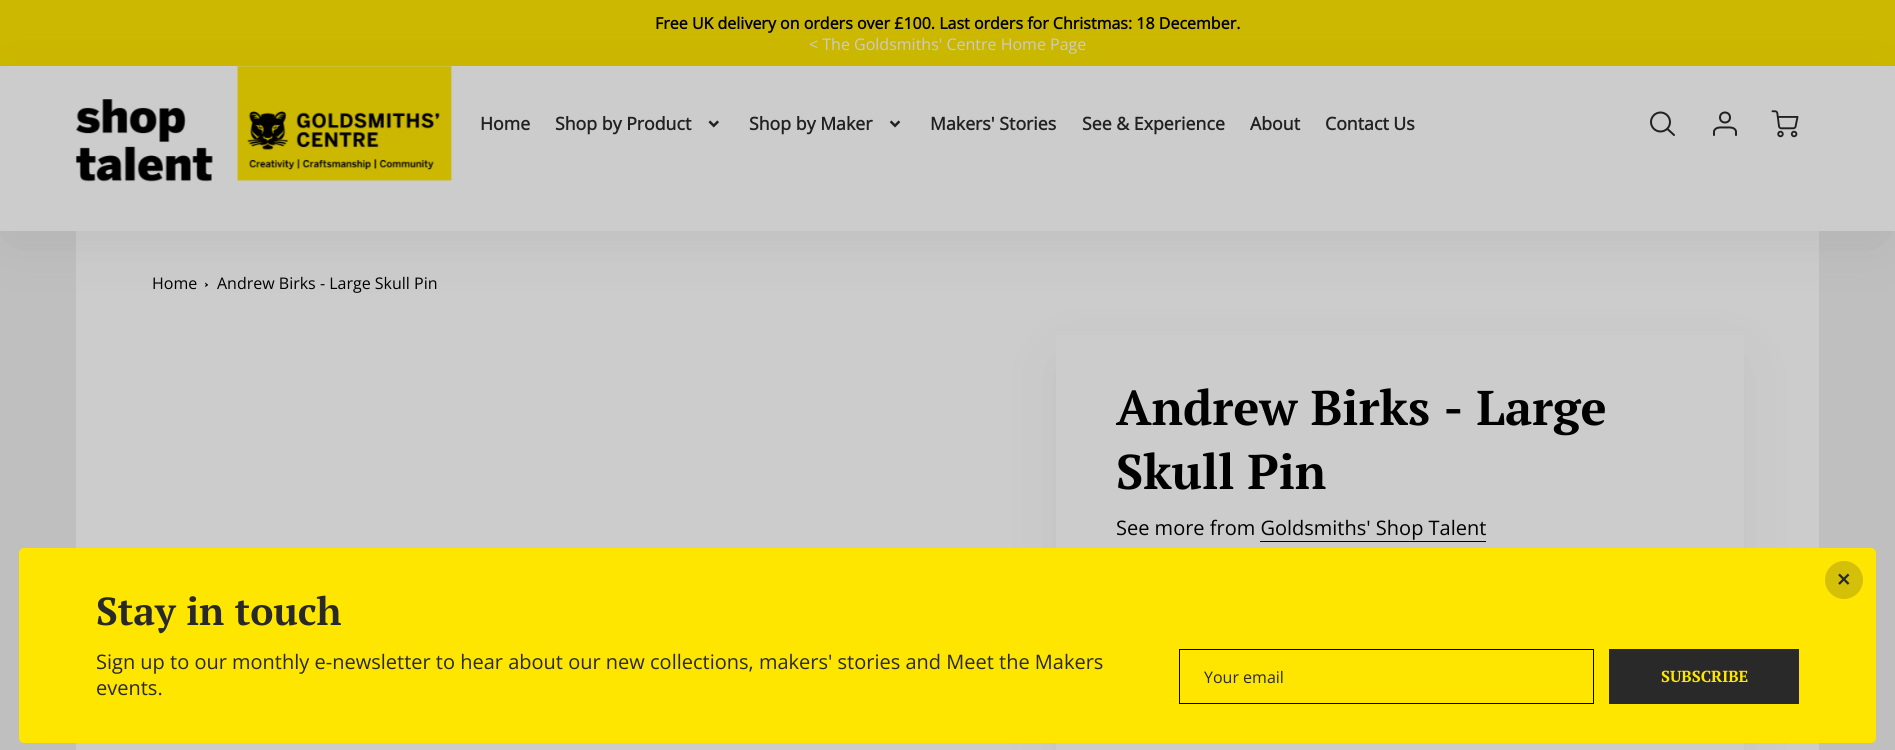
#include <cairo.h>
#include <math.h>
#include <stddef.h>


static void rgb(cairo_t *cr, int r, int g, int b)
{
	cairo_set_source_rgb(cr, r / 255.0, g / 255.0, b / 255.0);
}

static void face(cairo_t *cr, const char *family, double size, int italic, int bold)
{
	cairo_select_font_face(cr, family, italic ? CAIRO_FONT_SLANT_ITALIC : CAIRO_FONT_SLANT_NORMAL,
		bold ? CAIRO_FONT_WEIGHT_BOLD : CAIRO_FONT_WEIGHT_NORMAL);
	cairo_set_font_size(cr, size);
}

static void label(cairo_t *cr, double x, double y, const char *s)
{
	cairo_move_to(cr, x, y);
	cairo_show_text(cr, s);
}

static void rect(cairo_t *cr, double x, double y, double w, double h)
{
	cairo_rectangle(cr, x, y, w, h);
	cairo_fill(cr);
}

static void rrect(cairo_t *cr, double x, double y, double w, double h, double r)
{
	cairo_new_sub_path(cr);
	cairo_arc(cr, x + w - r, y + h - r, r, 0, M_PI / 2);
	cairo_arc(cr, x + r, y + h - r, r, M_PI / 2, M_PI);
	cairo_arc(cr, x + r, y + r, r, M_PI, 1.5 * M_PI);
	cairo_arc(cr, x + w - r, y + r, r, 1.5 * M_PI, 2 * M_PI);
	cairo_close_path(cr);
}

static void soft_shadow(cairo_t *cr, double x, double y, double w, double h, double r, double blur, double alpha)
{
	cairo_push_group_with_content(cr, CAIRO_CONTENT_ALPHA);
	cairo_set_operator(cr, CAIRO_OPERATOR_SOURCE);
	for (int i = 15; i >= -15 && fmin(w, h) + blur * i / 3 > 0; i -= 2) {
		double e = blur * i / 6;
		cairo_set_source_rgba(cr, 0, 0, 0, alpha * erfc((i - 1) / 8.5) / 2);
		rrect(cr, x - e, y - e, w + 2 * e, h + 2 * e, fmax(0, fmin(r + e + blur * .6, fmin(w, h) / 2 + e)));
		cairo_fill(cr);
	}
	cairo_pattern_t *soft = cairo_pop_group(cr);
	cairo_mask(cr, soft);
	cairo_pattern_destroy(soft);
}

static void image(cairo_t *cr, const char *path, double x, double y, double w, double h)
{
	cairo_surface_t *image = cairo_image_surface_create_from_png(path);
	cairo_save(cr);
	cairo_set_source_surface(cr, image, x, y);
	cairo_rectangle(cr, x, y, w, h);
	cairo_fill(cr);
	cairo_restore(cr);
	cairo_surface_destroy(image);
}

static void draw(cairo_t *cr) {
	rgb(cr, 191, 191, 191);
	cairo_paint(cr);
	rgb(cr, 204, 184, 0);
	rect(cr, 0, 0, 1895, 66);
	face(cr, "Open Sans", 16, 0, 1);
	rgb(cr, 0, 0, 0);
	label(cr, 655, 29, "Free UK delivery on orders over £100. Last orders for Christmas: 18 December.");
	face(cr, "Open Sans", 16, 0, 0);
	rgb(cr, 204, 204, 204);
	label(cr, 809, 50, "< The Goldsmiths' Centre Home Page");
	rect(cr, 76, 231, 1743, 519);
	rgb(cr, 0, 0, 0);
	cairo_new_path(cr);
	cairo_move_to(cr, 205.5, 282.5);
	cairo_line_to(cr, 208, 285);
	cairo_line_to(cr, 207, 285.5);
	cairo_line_to(cr, 205, 283.5);
	cairo_close_path(cr);
	cairo_fill(cr);
	cairo_new_path(cr);
	cairo_move_to(cr, 207, 284);
	cairo_line_to(cr, 208, 285);
	cairo_line_to(cr, 205.5, 287);
	cairo_line_to(cr, 205, 286);
	cairo_close_path(cr);
	cairo_fill(cr);
	rgb(cr, 32, 32, 32);
	soft_shadow(cr, 11, 96, 1870, 140, 0, 31, 0.1);
	rgb(cr, 204, 204, 204);
	rect(cr, 0, 66, 1895, 165);
	image(cr, "image0.png", 75, 66, 377, 116);
	face(cr, "Open Sans", 17.75, 0, 1);
	rgb(cr, 33, 33, 33);
	label(cr, 480, 130, "Home");
	label(cr, 555, 130, "Shop by Product");
	image(cr, "image1.png", 708, 120, 11, 8);
	label(cr, 749, 130, "Shop by Maker");
	image(cr, "image2.png", 889, 120, 12, 8);
	label(cr, 930, 130, "Makers' Stories");
	label(cr, 1082, 130, "See & Experience");
	label(cr, 1250, 130, "About");
	label(cr, 1325, 130, "Contact Us");
	cairo_new_path(cr);
	cairo_arc(cr, 1660.5, 122, 9.5, 0, 2 * M_PI);
	cairo_stroke(cr);
	cairo_new_path(cr);
	cairo_move_to(cr, 1674, 135);
	cairo_line_to(cr, 1667.5, 129);
	cairo_set_line_cap(cr, CAIRO_LINE_CAP_ROUND);
	cairo_set_line_join(cr, CAIRO_LINE_JOIN_ROUND);
	cairo_stroke(cr);
	cairo_arc(cr, 1725, 117.5, 5, 0, 2 * M_PI);
	cairo_set_line_cap(cr, CAIRO_LINE_CAP_BUTT);
	cairo_set_line_join(cr, CAIRO_LINE_JOIN_MITER);
	cairo_stroke(cr);
	cairo_new_path(cr);
	cairo_move_to(cr, 1736, 135);
	cairo_line_to(cr, 1736, 131.5);
	cairo_curve_to(cr, 1735, 126.5, 1728.5, 127.5, 1725, 127.5);
	cairo_curve_to(cr, 1721.5, 127.5, 1715, 126.5, 1714, 131.5);
	cairo_line_to(cr, 1714, 135);
	cairo_set_line_cap(cr, CAIRO_LINE_CAP_ROUND);
	cairo_set_line_join(cr, CAIRO_LINE_JOIN_ROUND);
	cairo_stroke(cr);
	image(cr, "image3.png", 1771, 110, 28, 28);
	face(cr, "Open Sans", 16, 0, 0);
	rgb(cr, 0, 0, 0);
	label(cr, 152, 289, "Home");
	label(cr, 217, 289, "Andrew Birks - Large Skull Pin");
	rgb(cr, 32, 32, 32);
	soft_shadow(cr, 1068, 365, 662, 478, 0, 31, 0.1);
	rgb(cr, 204, 204, 204);
	rect(cr, 1056, 335, 688, 415);
	face(cr, "PT Serif", 48.75, 0, 1);
	rgb(cr, 0, 0, 0);
	label(cr, 1116, 425, "Andrew Birks - Large");
	label(cr, 1116, 489, "Skull Pin");
	face(cr, "Open Sans", 20, 0, 0);
	label(cr, 1116, 535, "See more from Goldsmiths' Shop Talent");
	rect(cr, 1260, 541, 226, 1);
	rgb(cr, 255, 230, 0);
	rrect(cr, 19, 548, 1857, 195, 5);
	cairo_fill(cr);
	rgb(cr, 212, 192, 8);
	cairo_arc(cr, 1844, 580, 19, 0, 2 * M_PI);
	cairo_fill(cr);
	face(cr, "DejaVu Sans", 18, 0, 1);
	rgb(cr, 41, 41, 41);
	label(cr, 1836, 586, "✕");
	face(cr, "PT Serif", 39, 0, 1);
	label(cr, 96, 625, "Stay in touch");
	face(cr, "Open Sans", 20, 0, 0);
	label(cr, 96, 669, "Sign up to our monthly e-newsletter to hear about our new collections, makers' stories and Meet the Makers");
	label(cr, 96, 695, "events.");
	cairo_rectangle(cr, 1179.5, 649.5, 414, 54);
	rgb(cr, 0, 0, 0);
	cairo_set_line_width(cr, 1);
	cairo_set_line_cap(cr, CAIRO_LINE_CAP_BUTT);
	cairo_set_line_join(cr, CAIRO_LINE_JOIN_MITER);
	cairo_stroke(cr);
	face(cr, "Open Sans", 16, 0, 0);
	rgb(cr, 41, 41, 41);
	label(cr, 1204, 683, "Your email");
	rect(cr, 1609, 649, 190, 55);
	face(cr, "PT Serif", 16, 0, 1);
	rgb(cr, 255, 230, 0);
	label(cr, 1661, 682, "SUBSCRIBE");
}

int main(void) {
	cairo_surface_t *surface = cairo_image_surface_create(CAIRO_FORMAT_RGB24, 1895, 750);
	cairo_t *cr = cairo_create(surface);
	cairo_font_options_t *options = cairo_font_options_create();
	cairo_font_options_set_hint_metrics(options, CAIRO_HINT_METRICS_OFF);
	cairo_font_options_set_hint_style(options, CAIRO_HINT_STYLE_NONE);
	cairo_set_font_options(cr, options);
	cairo_set_miter_limit(cr, 4);
	draw(cr);
	cairo_surface_write_to_png(surface, "render.png");
	cairo_font_options_destroy(options);
	cairo_destroy(cr);
	cairo_surface_destroy(surface);
	return 0;
}
